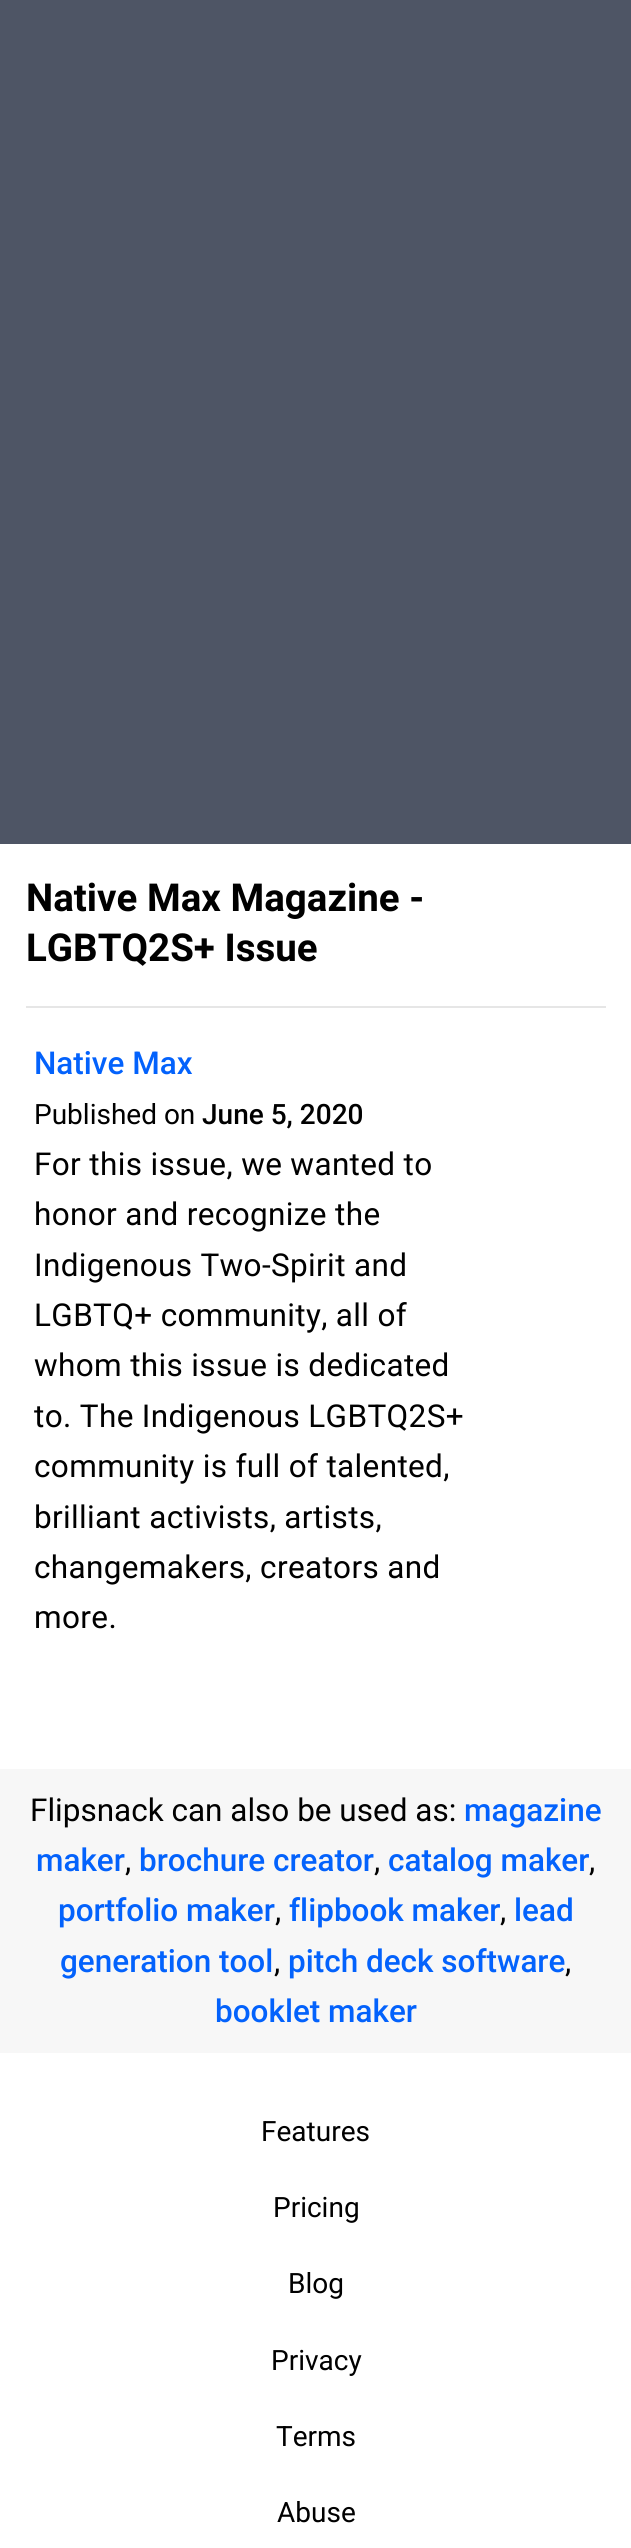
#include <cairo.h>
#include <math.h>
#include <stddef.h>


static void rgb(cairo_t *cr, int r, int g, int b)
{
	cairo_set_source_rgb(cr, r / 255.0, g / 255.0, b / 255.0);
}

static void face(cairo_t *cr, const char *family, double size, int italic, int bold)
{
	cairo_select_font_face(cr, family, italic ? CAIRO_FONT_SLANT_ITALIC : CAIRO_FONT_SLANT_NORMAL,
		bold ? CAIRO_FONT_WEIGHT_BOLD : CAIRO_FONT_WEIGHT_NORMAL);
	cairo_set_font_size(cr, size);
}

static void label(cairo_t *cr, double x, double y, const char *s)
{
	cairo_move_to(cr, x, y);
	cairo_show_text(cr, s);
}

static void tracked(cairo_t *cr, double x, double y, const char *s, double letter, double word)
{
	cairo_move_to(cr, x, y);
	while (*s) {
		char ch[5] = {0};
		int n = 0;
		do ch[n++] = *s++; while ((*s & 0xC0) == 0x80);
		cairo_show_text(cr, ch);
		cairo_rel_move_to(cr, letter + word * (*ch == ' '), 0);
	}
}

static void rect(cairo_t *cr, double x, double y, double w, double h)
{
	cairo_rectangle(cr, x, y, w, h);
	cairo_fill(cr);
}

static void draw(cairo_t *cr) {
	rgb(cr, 255, 255, 255);
	cairo_paint(cr);
	rgb(cr, 78, 85, 101);
	rect(cr, 0, 0, 631, 844);
	face(cr, "Roboto", 38.5, 0, 1);
	rgb(cr, 0, 0, 0);
	label(cr, 26, 911, "Native Max Magazine -");
	label(cr, 26, 961, "LGBTQ2S+ Issue");
	rgb(cr, 230, 230, 230);
	rect(cr, 26, 1006, 580, 2);
	face(cr, "Roboto Medium", 31.5, 0, 0);
	rgb(cr, 3, 98, 252);
	label(cr, 34, 1074, "Native Max");
	face(cr, "Roboto", 28, 0, 0);
	rgb(cr, 0, 0, 0);
	label(cr, 34, 1124, "Published on");
	face(cr, "Roboto Medium", 28, 0, 0);
	label(cr, 202, 1124, "June 5, 2020");
	face(cr, "Roboto", 31.5, 0, 0);
	tracked(cr, 34, 1175, "For this issue, we wanted to", 0.35, 0);
	tracked(cr, 34, 1225, "honor and recognize the", 0.35, 0);
	tracked(cr, 34, 1276, "Indigenous Two-Spirit and", 0.35, 0);
	tracked(cr, 34, 1326, "LGBTQ+ community, all of", 0.35, 0);
	tracked(cr, 34, 1376, "whom this issue is dedicated", 0.35, 0);
	tracked(cr, 34, 1427, "to. The Indigenous LGBTQ2S+", 0.35, 0);
	tracked(cr, 34, 1477, "community is full of talented,", 0.35, 0);
	tracked(cr, 34, 1528, "brilliant activists, artists,", 0.35, 0);
	tracked(cr, 34, 1578, "changemakers, creators and", 0.35, 0);
	tracked(cr, 34, 1628, "more.", 0.35, 0);
	rgb(cr, 247, 247, 247);
	rect(cr, 0, 1769, 631, 284);
	rgb(cr, 0, 0, 0);
	label(cr, 30, 1821, "Flipsnack can also be used as:");
	face(cr, "Roboto Medium", 31.5, 0, 0);
	rgb(cr, 3, 98, 252);
	label(cr, 464, 1821, "magazine");
	label(cr, 36, 1871, "maker");
	face(cr, "Roboto", 31.5, 0, 0);
	rgb(cr, 0, 0, 0);
	label(cr, 125, 1871, ",");
	face(cr, "Roboto Medium", 31.5, 0, 0);
	rgb(cr, 3, 98, 252);
	label(cr, 139, 1871, "brochure creator");
	face(cr, "Roboto", 31.5, 0, 0);
	rgb(cr, 0, 0, 0);
	label(cr, 374, 1871, ",");
	face(cr, "Roboto Medium", 31.5, 0, 0);
	rgb(cr, 3, 98, 252);
	label(cr, 388, 1871, "catalog maker");
	face(cr, "Roboto", 31.5, 0, 0);
	rgb(cr, 0, 0, 0);
	label(cr, 589, 1871, ",");
	face(cr, "Roboto Medium", 31.5, 0, 0);
	rgb(cr, 3, 98, 252);
	label(cr, 58, 1921, "portfolio maker");
	face(cr, "Roboto", 31.5, 0, 0);
	rgb(cr, 0, 0, 0);
	label(cr, 275, 1921, ",");
	face(cr, "Roboto Medium", 31.5, 0, 0);
	rgb(cr, 3, 98, 252);
	label(cr, 289, 1921, "flipbook maker");
	face(cr, "Roboto", 31.5, 0, 0);
	rgb(cr, 0, 0, 0);
	label(cr, 500, 1921, ",");
	face(cr, "Roboto Medium", 31.5, 0, 0);
	rgb(cr, 3, 98, 252);
	label(cr, 514, 1921, "lead");
	label(cr, 60, 1972, "generation tool");
	face(cr, "Roboto", 31.5, 0, 0);
	rgb(cr, 0, 0, 0);
	label(cr, 274, 1972, ",");
	face(cr, "Roboto Medium", 31.5, 0, 0);
	rgb(cr, 3, 98, 252);
	label(cr, 288, 1972, "pitch deck software");
	face(cr, "Roboto", 31.5, 0, 0);
	rgb(cr, 0, 0, 0);
	label(cr, 565, 1972, ",");
	face(cr, "Roboto Medium", 31.5, 0, 0);
	rgb(cr, 3, 98, 252);
	label(cr, 215, 2022, "booklet maker");
	face(cr, "Roboto", 28, 0, 0);
	rgb(cr, 0, 0, 0);
	label(cr, 261, 2141, "Features");
	label(cr, 273, 2217, "Pricing");
	label(cr, 288, 2293, "Blog");
	label(cr, 271, 2370, "Privacy");
	label(cr, 276, 2446, "Terms");
	label(cr, 277, 2522, "Abuse");
}

int main(void) {
	cairo_surface_t *surface = cairo_image_surface_create(CAIRO_FORMAT_RGB24, 631, 2548);
	cairo_t *cr = cairo_create(surface);
	cairo_font_options_t *options = cairo_font_options_create();
	cairo_font_options_set_hint_metrics(options, CAIRO_HINT_METRICS_OFF);
	cairo_font_options_set_hint_style(options, CAIRO_HINT_STYLE_NONE);
	cairo_set_font_options(cr, options);
	cairo_set_miter_limit(cr, 4);
	draw(cr);
	cairo_surface_write_to_png(surface, "render.png");
	cairo_font_options_destroy(options);
	cairo_destroy(cr);
	cairo_surface_destroy(surface);
	return 0;
}
